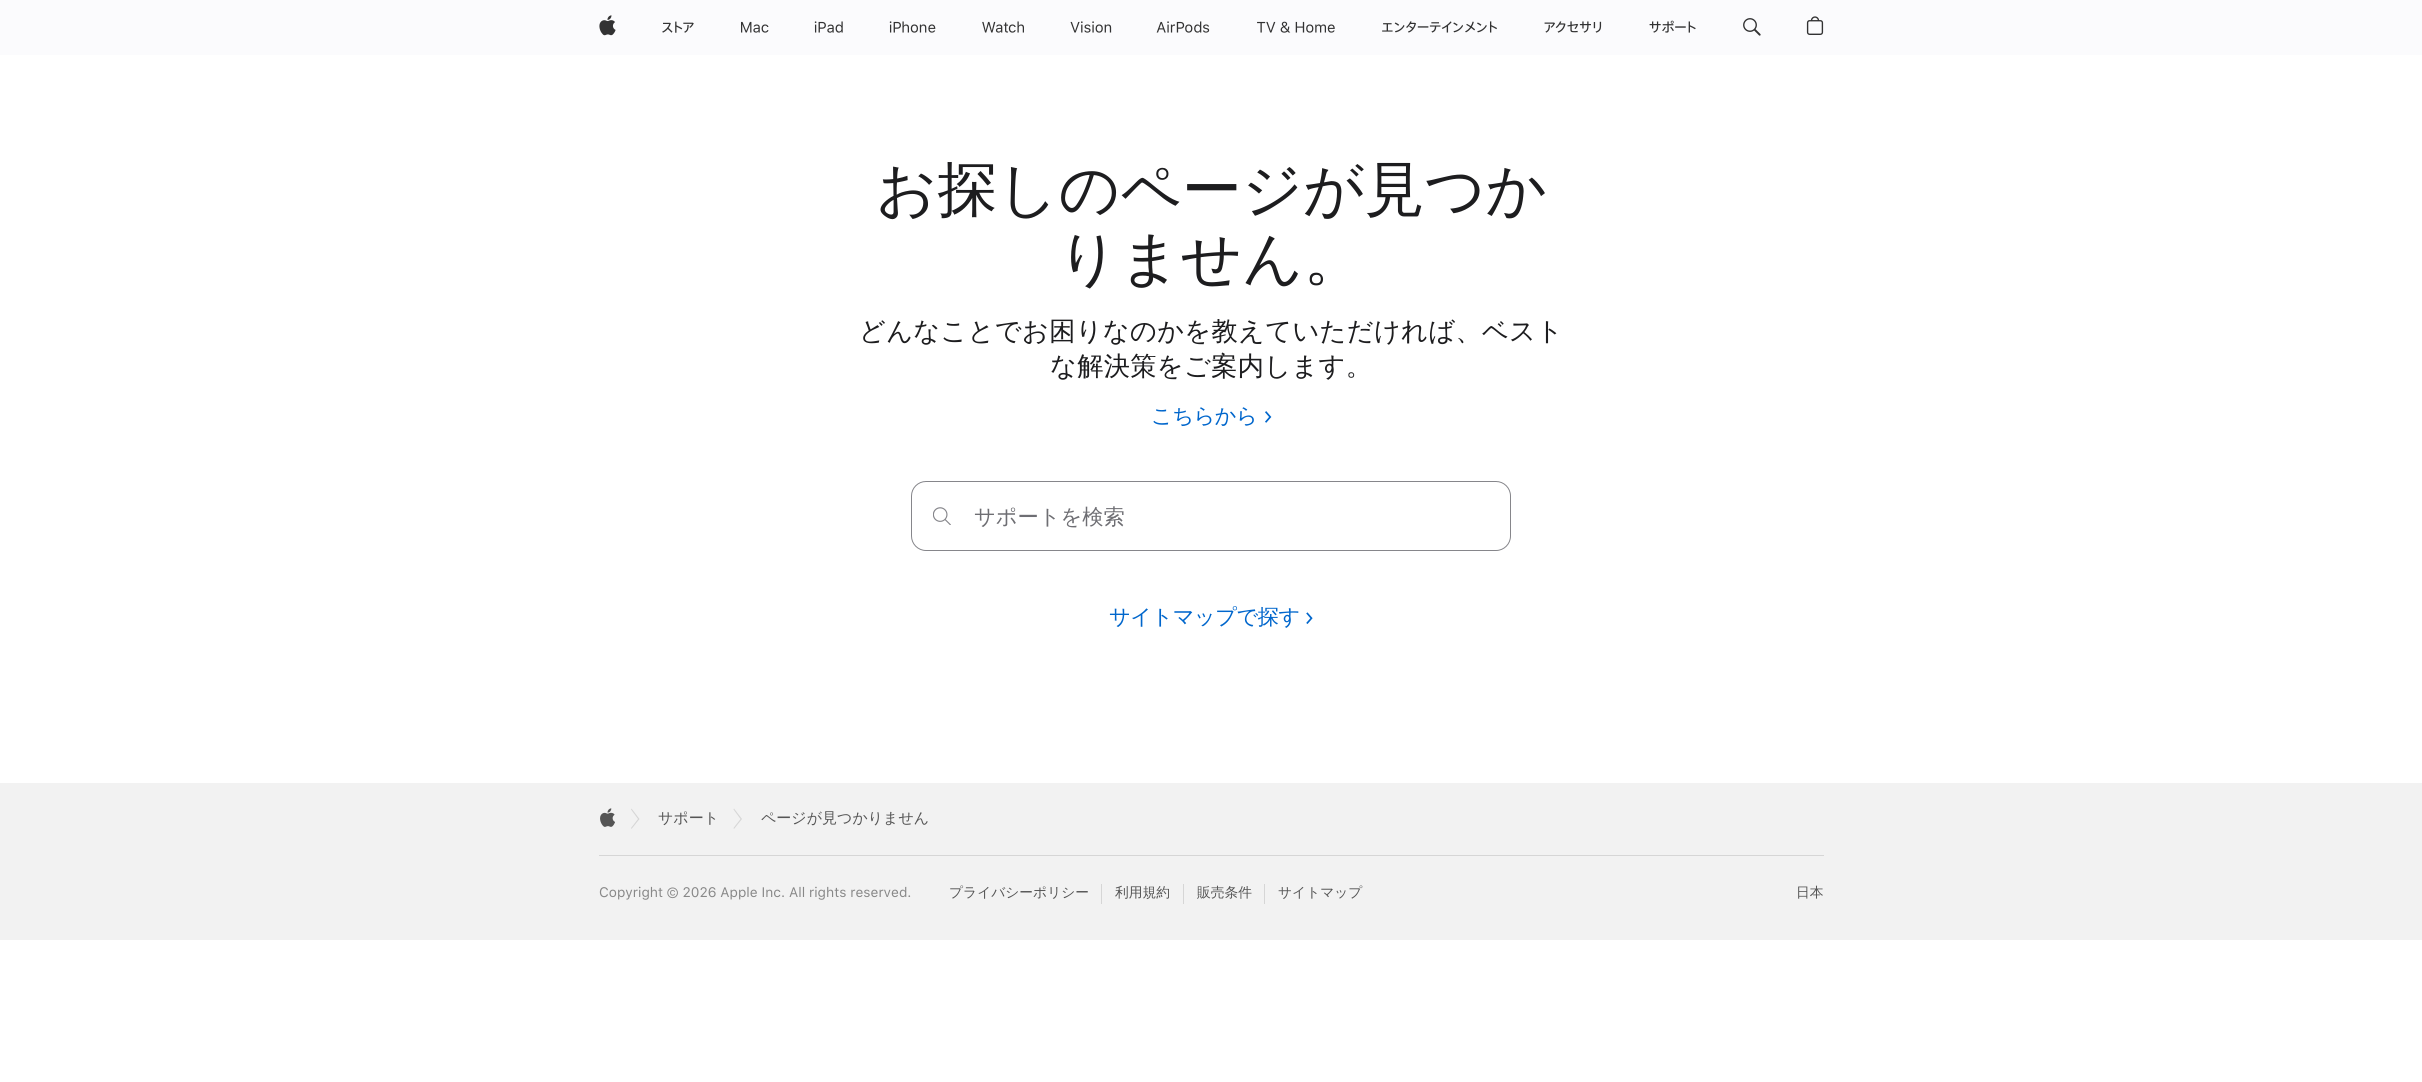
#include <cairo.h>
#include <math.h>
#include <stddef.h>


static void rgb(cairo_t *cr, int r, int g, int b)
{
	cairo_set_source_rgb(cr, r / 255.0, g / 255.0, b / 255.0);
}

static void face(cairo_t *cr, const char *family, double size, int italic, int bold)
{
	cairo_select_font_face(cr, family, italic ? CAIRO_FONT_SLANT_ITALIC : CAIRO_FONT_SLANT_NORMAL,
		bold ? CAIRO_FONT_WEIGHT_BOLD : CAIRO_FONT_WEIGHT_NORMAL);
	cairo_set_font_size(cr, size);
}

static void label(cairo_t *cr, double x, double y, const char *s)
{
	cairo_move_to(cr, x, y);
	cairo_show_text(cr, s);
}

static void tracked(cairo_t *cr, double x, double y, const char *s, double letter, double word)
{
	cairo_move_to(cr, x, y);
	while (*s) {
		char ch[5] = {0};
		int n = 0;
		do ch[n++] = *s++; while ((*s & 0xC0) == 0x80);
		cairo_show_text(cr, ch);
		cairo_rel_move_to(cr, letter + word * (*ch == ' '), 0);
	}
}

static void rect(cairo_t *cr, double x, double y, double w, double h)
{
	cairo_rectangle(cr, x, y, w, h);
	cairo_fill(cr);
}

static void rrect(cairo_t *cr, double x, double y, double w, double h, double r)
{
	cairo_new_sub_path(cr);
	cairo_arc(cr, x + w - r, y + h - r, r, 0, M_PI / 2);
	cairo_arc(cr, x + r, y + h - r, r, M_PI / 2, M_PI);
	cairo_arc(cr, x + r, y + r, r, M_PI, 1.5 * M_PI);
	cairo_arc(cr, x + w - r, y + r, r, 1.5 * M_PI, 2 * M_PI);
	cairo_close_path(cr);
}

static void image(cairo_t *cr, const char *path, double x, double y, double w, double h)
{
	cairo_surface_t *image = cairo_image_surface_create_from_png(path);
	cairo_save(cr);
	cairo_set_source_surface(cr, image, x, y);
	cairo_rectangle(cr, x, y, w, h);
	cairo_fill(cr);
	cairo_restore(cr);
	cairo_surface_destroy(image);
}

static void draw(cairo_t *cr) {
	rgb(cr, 255, 255, 255);
	cairo_paint(cr);
	rgb(cr, 251, 251, 253);
	rect(cr, 0, 0, 2422, 55);
	image(cr, "image0.png", 599, 15, 17, 21);
	image(cr, "image1.png", 662, 21, 32, 12);
	image(cr, "image2.png", 741, 21, 28, 12);
	image(cr, "image3.png", 814, 21, 29, 12);
	image(cr, "image4.png", 889, 21, 47, 12);
	image(cr, "image5.png", 982, 21, 42, 12);
	image(cr, "image6.png", 1070, 21, 42, 12);
	image(cr, "image7.png", 1156, 21, 54, 12);
	image(cr, "image8.png", 1257, 21, 78, 12);
	image(cr, "image9.png", 1382, 21, 115, 12);
	image(cr, "image10.png", 1544, 21, 58, 12);
	image(cr, "image11.png", 1649, 20, 47, 13);
	image(cr, "image12.png", 1743, 18, 18, 18);
	image(cr, "image13.png", 1806, 16, 18, 19);
	face(cr, "WenQuanYi Zen Hei Medium", 60, 0, 0);
	rgb(cr, 29, 29, 31);
	label(cr, 876, 210, "お探しのページが見つか");
	label(cr, 1058, 279, "りません。");
	face(cr, "WenQuanYi Zen Hei Medium", 26.25, 0, 0);
	tracked(cr, 859, 340, "どんなことでお困りなのかを教えていただければ、ベスト", 0.3, 0);
	tracked(cr, 1050, 375, "な解決策をご案内します。", 0.3, 0);
	face(cr, "WenQuanYi Zen Hei Medium", 21.25, 0, 0);
	rgb(cr, 0, 102, 204);
	tracked(cr, 1151, 423, "こちらから", -0.5, 0);
	image(cr, "image14.png", 1265, 411, 7, 12);
	rrect(cr, 911.5, 481.5, 599, 69, 14.5);
	rgb(cr, 134, 134, 139);
	cairo_set_line_width(cr, 1);
	cairo_stroke(cr);
	image(cr, "image15.png", 933, 507, 18, 18);
	rgb(cr, 110, 110, 115);
	label(cr, 974, 524, "サポートを検索");
	rgb(cr, 0, 102, 204);
	tracked(cr, 1109, 624, "サイトマップで探す", -0.5, 0);
	image(cr, "image16.png", 1306, 612, 7, 12);
	rgb(cr, 242, 242, 242);
	rect(cr, 0, 783, 2422, 157);
	image(cr, "image17.png", 600, 808, 15, 19);
	rgb(cr, 214, 214, 214);
	cairo_new_path(cr);
	cairo_move_to(cr, 631.5, 808.5);
	cairo_line_to(cr, 639.5, 819);
	cairo_line_to(cr, 631.5, 829);
	cairo_line_to(cr, 631, 828);
	cairo_line_to(cr, 638, 819);
	cairo_line_to(cr, 631, 809.5);
	cairo_close_path(cr);
	cairo_fill(cr);
	face(cr, "WenQuanYi Zen Hei Medium", 15, 0, 0);
	rgb(cr, 85, 85, 85);
	label(cr, 658, 823, "サポート");
	rgb(cr, 214, 214, 214);
	cairo_new_path(cr);
	cairo_move_to(cr, 734, 808.5);
	cairo_line_to(cr, 742, 819);
	cairo_line_to(cr, 734, 829);
	cairo_line_to(cr, 733.5, 828);
	cairo_line_to(cr, 740.5, 819);
	cairo_line_to(cr, 733.5, 809.5);
	cairo_close_path(cr);
	cairo_fill(cr);
	rgb(cr, 85, 85, 85);
	label(cr, 761, 823, "ページが見つかりません");
	rgb(cr, 214, 214, 214);
	rect(cr, 599, 855, 1225, 1);
	face(cr, "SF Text", 13.75, 0, 0);
	rgb(cr, 136, 136, 136);
	label(cr, 599, 897, "Copyright © 2026 Apple Inc. All rights reserved.");
	rgb(cr, 214, 214, 214);
	rect(cr, 1101, 884, 1, 20);
	face(cr, "WenQuanYi Zen Hei Medium", 13.75, 0, 0);
	rgb(cr, 85, 85, 85);
	label(cr, 949, 897, "プライバシーポリシー");
	rgb(cr, 214, 214, 214);
	rect(cr, 1183, 884, 1, 20);
	rgb(cr, 85, 85, 85);
	label(cr, 1115, 897, "利用規約");
	rgb(cr, 214, 214, 214);
	rect(cr, 1264, 884, 1, 20);
	rgb(cr, 85, 85, 85);
	label(cr, 1197, 897, "販売条件");
	label(cr, 1278, 897, "サイトマップ");
	label(cr, 1796, 897, "日本");
}

int main(void) {
	cairo_surface_t *surface = cairo_image_surface_create(CAIRO_FORMAT_RGB24, 2422, 1082);
	cairo_t *cr = cairo_create(surface);
	cairo_font_options_t *options = cairo_font_options_create();
	cairo_font_options_set_hint_metrics(options, CAIRO_HINT_METRICS_OFF);
	cairo_font_options_set_hint_style(options, CAIRO_HINT_STYLE_NONE);
	cairo_set_font_options(cr, options);
	cairo_set_miter_limit(cr, 4);
	draw(cr);
	cairo_surface_write_to_png(surface, "render.png");
	cairo_font_options_destroy(options);
	cairo_destroy(cr);
	cairo_surface_destroy(surface);
	return 0;
}
